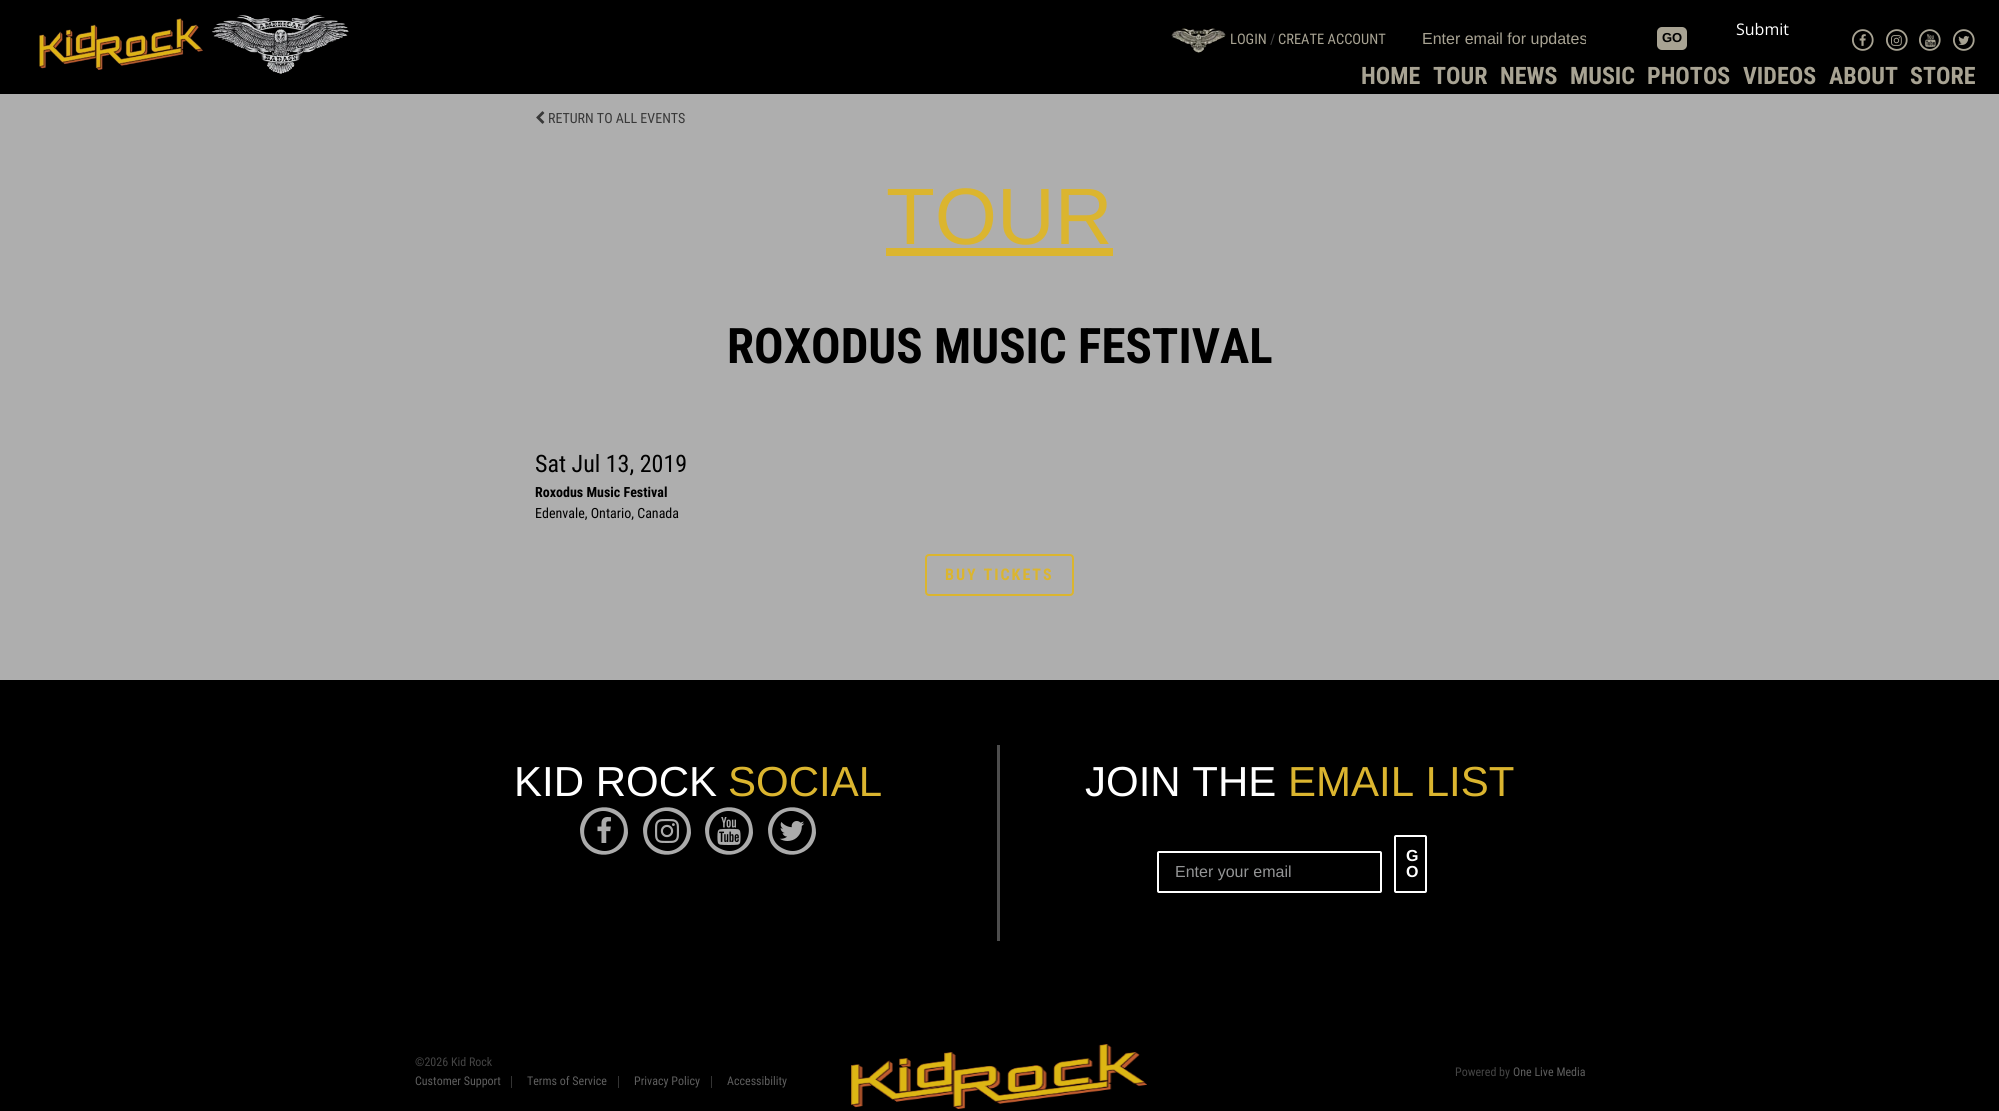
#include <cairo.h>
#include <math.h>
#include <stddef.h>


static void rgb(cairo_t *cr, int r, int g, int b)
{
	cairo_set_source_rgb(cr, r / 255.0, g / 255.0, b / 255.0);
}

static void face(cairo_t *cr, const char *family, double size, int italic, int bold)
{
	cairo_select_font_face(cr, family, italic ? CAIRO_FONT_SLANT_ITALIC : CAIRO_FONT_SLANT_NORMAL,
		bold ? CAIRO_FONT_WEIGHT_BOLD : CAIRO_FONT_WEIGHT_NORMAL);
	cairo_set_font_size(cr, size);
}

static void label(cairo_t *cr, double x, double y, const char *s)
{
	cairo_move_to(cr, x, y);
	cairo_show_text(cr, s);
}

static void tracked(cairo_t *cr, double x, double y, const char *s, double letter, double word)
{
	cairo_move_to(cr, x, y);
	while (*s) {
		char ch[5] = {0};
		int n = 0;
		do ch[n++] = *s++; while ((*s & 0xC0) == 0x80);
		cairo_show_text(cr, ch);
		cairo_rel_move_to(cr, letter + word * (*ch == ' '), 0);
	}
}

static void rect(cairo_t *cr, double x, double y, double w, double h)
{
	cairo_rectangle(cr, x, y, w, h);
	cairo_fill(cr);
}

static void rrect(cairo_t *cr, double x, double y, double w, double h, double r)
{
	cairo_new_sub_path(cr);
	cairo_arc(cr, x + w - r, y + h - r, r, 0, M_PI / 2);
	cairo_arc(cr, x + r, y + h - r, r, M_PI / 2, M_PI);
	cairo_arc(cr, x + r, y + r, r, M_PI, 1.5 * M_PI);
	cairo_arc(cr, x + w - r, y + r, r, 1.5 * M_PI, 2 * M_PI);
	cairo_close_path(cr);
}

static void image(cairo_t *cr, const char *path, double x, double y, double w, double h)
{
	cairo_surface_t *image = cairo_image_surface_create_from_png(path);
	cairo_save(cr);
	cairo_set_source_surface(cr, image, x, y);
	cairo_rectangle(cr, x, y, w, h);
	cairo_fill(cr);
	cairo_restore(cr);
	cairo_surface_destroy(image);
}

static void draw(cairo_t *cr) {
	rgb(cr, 0, 0, 0);
	cairo_paint(cr);
	image(cr, "image0.png", 39, 15, 310, 59);
	image(cr, "image1.png", 1171, 28, 55, 25);
	face(cr, "Roboto Condensed", 14.5, 0, 0);
	rgb(cr, 168, 163, 147);
	label(cr, 1230, 44, "LOGIN");
	rgb(cr, 68, 68, 68);
	label(cr, 1270, 44, "/");
	rgb(cr, 168, 163, 147);
	label(cr, 1278, 44, "CREATE ACCOUNT");
	face(cr, "Open Sans", 16, 0, 0);
	rgb(cr, 255, 255, 255);
	label(cr, 1736, 35, "Submit");
	cairo_save(cr);
	cairo_rectangle(cr, 1422, 30, 164, 18);
	cairo_clip(cr);
	face(cr, "Liberation Sans", 16, 0, 0);
	rgb(cr, 168, 163, 147);
	label(cr, 1422, 44, "Enter email for updates");
	cairo_restore(cr);
	rgb(cr, 168, 163, 147);
	rrect(cr, 1657, 27, 30, 23, 5);
	cairo_fill(cr);
	face(cr, "Liberation Sans", 13, 0, 1);
	rgb(cr, 0, 0, 0);
	label(cr, 1662, 42, "GO");
	image(cr, "image2.png", 1852, 29, 22, 22);
	image(cr, "image3.png", 1859, 34, 7, 12);
	image(cr, "image2.png", 1886, 29, 22, 22);
	image(cr, "image4.png", 1891, 35, 11, 11);
	image(cr, "image2.png", 1919, 29, 22, 22);
	image(cr, "image5.png", 1925, 34, 11, 13);
	image(cr, "image2.png", 1953, 29, 22, 22);
	image(cr, "image6.png", 1958, 36, 12, 9);
	face(cr, "Roboto Condensed", 24, 0, 1);
	rgb(cr, 168, 163, 147);
	label(cr, 1361, 84, "HOME");
	label(cr, 1433, 84, "TOUR");
	label(cr, 1500, 84, "NEWS");
	label(cr, 1570, 84, "MUSIC");
	label(cr, 1647, 84, "PHOTOS");
	label(cr, 1743, 84, "VIDEOS");
	label(cr, 1829, 84, "ABOUT");
	label(cr, 1910, 84, "STORE");
	rgb(cr, 174, 174, 174);
	rect(cr, 0, 94, 1999, 586);
	image(cr, "image7.png", 536, 111, 9, 13);
	face(cr, "Roboto Condensed", 14, 0, 0);
	rgb(cr, 56, 56, 56);
	label(cr, 548, 123, "RETURN TO ALL EVENTS");
	face(cr, "Liberation Sans", 80, 0, 0);
	rgb(cr, 219, 181, 47);
	label(cr, 886, 244, "TOUR");
	rect(cr, 886, 248, 227, 8);
	face(cr, "Roboto Condensed", 49, 0, 1);
	rgb(cr, 0, 0, 0);
	label(cr, 727, 363, "ROXODUS MUSIC FESTIVAL");
	face(cr, "Roboto Condensed", 24, 0, 0);
	label(cr, 535, 472, "Sat Jul 13, 2019");
	face(cr, "Roboto Condensed", 14, 0, 1);
	label(cr, 535, 497, "Roxodus Music Festival");
	face(cr, "Roboto Condensed", 14, 0, 0);
	label(cr, 535, 518, "Edenvale, Ontario, Canada");
	rrect(cr, 926, 555, 147, 40, 3);
	rgb(cr, 219, 181, 47);
	cairo_stroke(cr);
	face(cr, "Roboto Condensed", 16, 0, 1);
	tracked(cr, 945, 580, "BUY TICKETS", 2, 0);
	rgb(cr, 77, 77, 77);
	rect(cr, 997, 745, 3, 196);
	face(cr, "Liberation Sans", 42, 0, 0);
	rgb(cr, 255, 255, 255);
	label(cr, 514, 796, "KID ROCK");
	rgb(cr, 219, 181, 47);
	label(cr, 728, 796, "SOCIAL");
	rgb(cr, 171, 171, 171);
	cairo_new_path(cr);
	cairo_move_to(cr, 612, 813);
	cairo_curve_to(cr, 588, 802, 572, 839, 596, 849);
	cairo_curve_to(cr, 620, 860, 636, 823, 612, 813);
	cairo_close_path(cr);
	cairo_move_to(cr, 625, 819);
	cairo_curve_to(cr, 627, 823, 628, 828, 628, 833);
	cairo_curve_to(cr, 626, 856, 595, 863, 583, 843);
	cairo_curve_to(cr, 581, 839, 580, 834, 580, 829);
	cairo_curve_to(cr, 582, 806, 613, 799, 625, 819);
	cairo_close_path(cr);
	cairo_fill(cr);
	image(cr, "image8.png", 597, 817, 14, 26);
	cairo_new_path(cr);
	cairo_move_to(cr, 675, 813);
	cairo_curve_to(cr, 651, 802, 635, 839, 659, 849);
	cairo_curve_to(cr, 683, 860, 699, 823, 675, 813);
	cairo_close_path(cr);
	cairo_move_to(cr, 688, 819);
	cairo_curve_to(cr, 690, 823, 691, 828, 691, 833);
	cairo_curve_to(cr, 689, 856, 658, 863, 646, 843);
	cairo_curve_to(cr, 644, 839, 643, 834, 643, 829);
	cairo_curve_to(cr, 645, 806, 676, 799, 688, 819);
	cairo_close_path(cr);
	cairo_fill(cr);
	image(cr, "image9.png", 655, 819, 24, 24);
	cairo_new_path(cr);
	cairo_move_to(cr, 737, 813);
	cairo_curve_to(cr, 713, 802, 697, 839, 721, 849);
	cairo_curve_to(cr, 745, 860, 761, 823, 737, 813);
	cairo_close_path(cr);
	cairo_move_to(cr, 750, 819);
	cairo_curve_to(cr, 752, 823, 753, 828, 753, 833);
	cairo_curve_to(cr, 751, 856, 720, 863, 708, 843);
	cairo_curve_to(cr, 706, 839, 705, 834, 705, 829);
	cairo_curve_to(cr, 707, 806, 738, 799, 750, 819);
	cairo_close_path(cr);
	cairo_fill(cr);
	image(cr, "image10.png", 717, 817, 24, 28);
	cairo_new_path(cr);
	cairo_move_to(cr, 800, 813);
	cairo_curve_to(cr, 776, 802, 760, 839, 784, 849);
	cairo_curve_to(cr, 808, 860, 824, 823, 800, 813);
	cairo_close_path(cr);
	cairo_move_to(cr, 813, 819);
	cairo_curve_to(cr, 815, 823, 816, 828, 816, 833);
	cairo_curve_to(cr, 814, 856, 783, 863, 771, 843);
	cairo_curve_to(cr, 769, 839, 768, 834, 768, 829);
	cairo_curve_to(cr, 770, 806, 801, 799, 813, 819);
	cairo_close_path(cr);
	cairo_fill(cr);
	image(cr, "image11.png", 779, 821, 26, 20);
	rgb(cr, 255, 255, 255);
	label(cr, 1085, 796, "JOIN THE");
	rgb(cr, 219, 181, 47);
	label(cr, 1288, 796, "EMAIL LIST");
	rrect(cr, 1158, 852, 223, 40, 1);
	rgb(cr, 255, 255, 255);
	cairo_stroke(cr);
	face(cr, "Liberation Sans", 16, 0, 0);
	rgb(cr, 148, 149, 150);
	label(cr, 1175, 877, "Enter your email");
	rrect(cr, 1395, 836, 31, 56, 1);
	rgb(cr, 255, 255, 255);
	cairo_stroke(cr);
	face(cr, "Liberation Sans", 16, 0, 1);
	label(cr, 1406, 861, "G");
	label(cr, 1406, 877, "O");
	face(cr, "Roboto Condensed", 12, 0, 0);
	rgb(cr, 68, 68, 68);
	label(cr, 415, 1066, "©2026 Kid Rock");
	rgb(cr, 51, 51, 51);
	rect(cr, 511, 1076, 1, 12);
	rgb(cr, 94, 94, 94);
	label(cr, 415, 1085, "Customer Support");
	rgb(cr, 51, 51, 51);
	rect(cr, 618, 1076, 1, 12);
	rgb(cr, 94, 94, 94);
	label(cr, 527, 1085, "Terms of Service");
	rgb(cr, 51, 51, 51);
	rect(cr, 711, 1076, 1, 12);
	rgb(cr, 94, 94, 94);
	label(cr, 634, 1085, "Privacy Policy");
	label(cr, 727, 1085, "Accessibility");
	image(cr, "image12.png", 851, 1044, 296, 65);
	rgb(cr, 68, 68, 68);
	label(cr, 1455, 1076, "Powered by");
	rgb(cr, 94, 94, 94);
	label(cr, 1513, 1076, "One Live Media");
}

int main(void) {
	cairo_surface_t *surface = cairo_image_surface_create(CAIRO_FORMAT_RGB24, 1999, 1111);
	cairo_t *cr = cairo_create(surface);
	cairo_font_options_t *options = cairo_font_options_create();
	cairo_font_options_set_hint_metrics(options, CAIRO_HINT_METRICS_OFF);
	cairo_font_options_set_hint_style(options, CAIRO_HINT_STYLE_NONE);
	cairo_set_font_options(cr, options);
	cairo_set_miter_limit(cr, 4);
	draw(cr);
	cairo_surface_write_to_png(surface, "render.png");
	cairo_font_options_destroy(options);
	cairo_destroy(cr);
	cairo_surface_destroy(surface);
	return 0;
}
